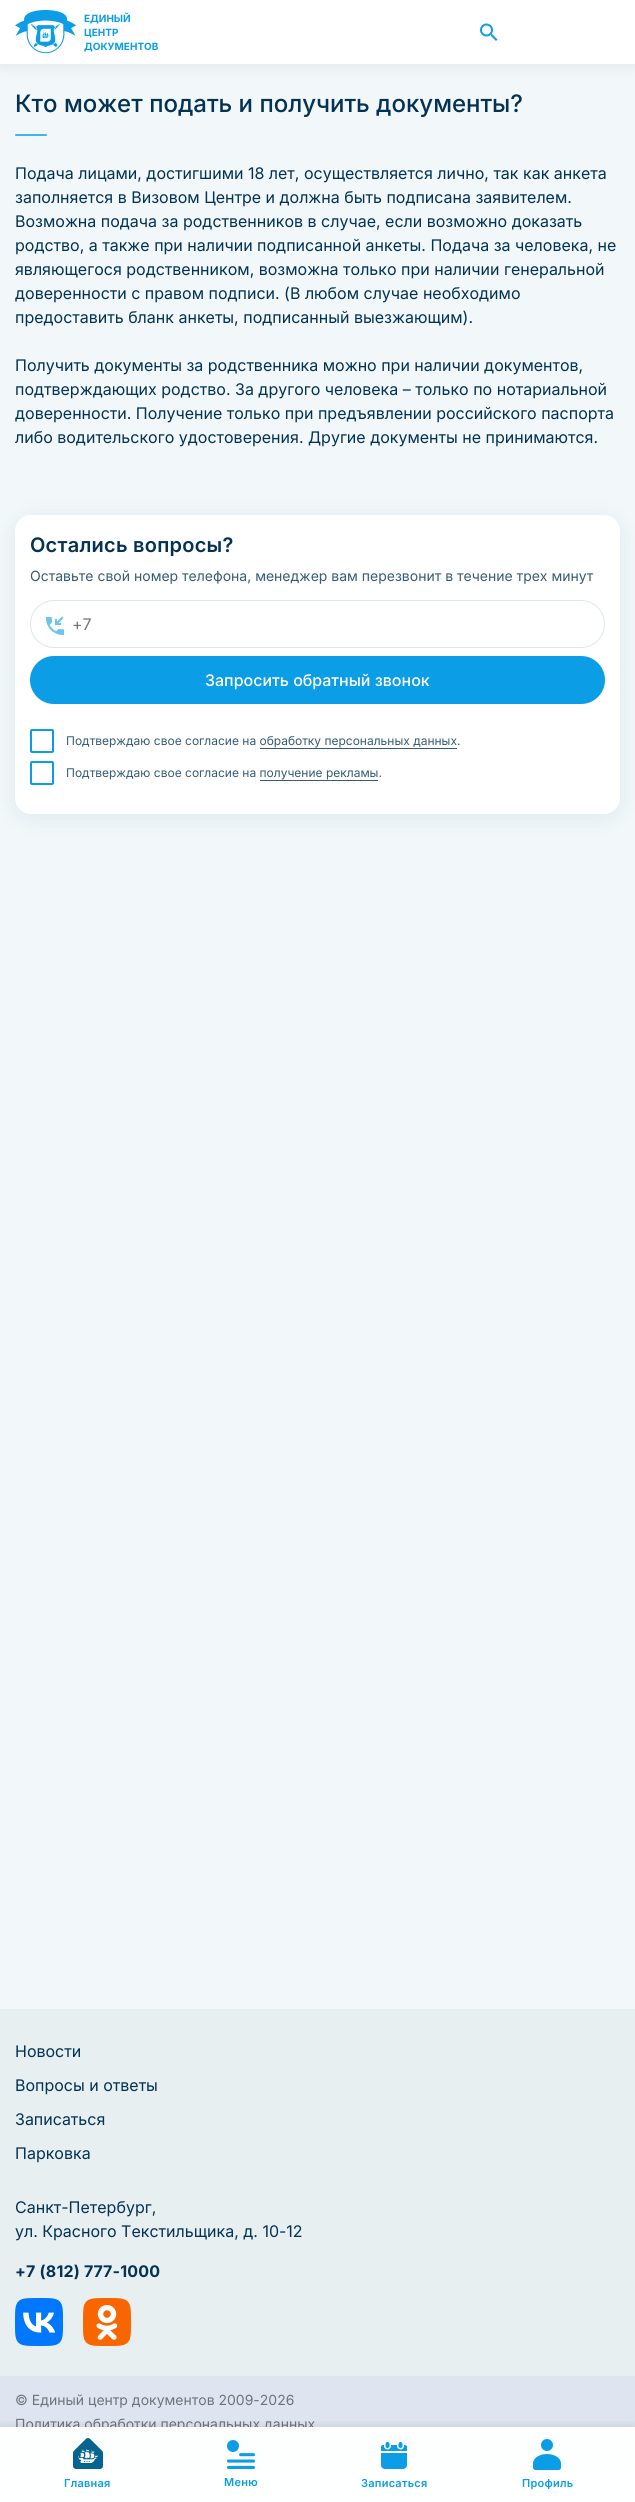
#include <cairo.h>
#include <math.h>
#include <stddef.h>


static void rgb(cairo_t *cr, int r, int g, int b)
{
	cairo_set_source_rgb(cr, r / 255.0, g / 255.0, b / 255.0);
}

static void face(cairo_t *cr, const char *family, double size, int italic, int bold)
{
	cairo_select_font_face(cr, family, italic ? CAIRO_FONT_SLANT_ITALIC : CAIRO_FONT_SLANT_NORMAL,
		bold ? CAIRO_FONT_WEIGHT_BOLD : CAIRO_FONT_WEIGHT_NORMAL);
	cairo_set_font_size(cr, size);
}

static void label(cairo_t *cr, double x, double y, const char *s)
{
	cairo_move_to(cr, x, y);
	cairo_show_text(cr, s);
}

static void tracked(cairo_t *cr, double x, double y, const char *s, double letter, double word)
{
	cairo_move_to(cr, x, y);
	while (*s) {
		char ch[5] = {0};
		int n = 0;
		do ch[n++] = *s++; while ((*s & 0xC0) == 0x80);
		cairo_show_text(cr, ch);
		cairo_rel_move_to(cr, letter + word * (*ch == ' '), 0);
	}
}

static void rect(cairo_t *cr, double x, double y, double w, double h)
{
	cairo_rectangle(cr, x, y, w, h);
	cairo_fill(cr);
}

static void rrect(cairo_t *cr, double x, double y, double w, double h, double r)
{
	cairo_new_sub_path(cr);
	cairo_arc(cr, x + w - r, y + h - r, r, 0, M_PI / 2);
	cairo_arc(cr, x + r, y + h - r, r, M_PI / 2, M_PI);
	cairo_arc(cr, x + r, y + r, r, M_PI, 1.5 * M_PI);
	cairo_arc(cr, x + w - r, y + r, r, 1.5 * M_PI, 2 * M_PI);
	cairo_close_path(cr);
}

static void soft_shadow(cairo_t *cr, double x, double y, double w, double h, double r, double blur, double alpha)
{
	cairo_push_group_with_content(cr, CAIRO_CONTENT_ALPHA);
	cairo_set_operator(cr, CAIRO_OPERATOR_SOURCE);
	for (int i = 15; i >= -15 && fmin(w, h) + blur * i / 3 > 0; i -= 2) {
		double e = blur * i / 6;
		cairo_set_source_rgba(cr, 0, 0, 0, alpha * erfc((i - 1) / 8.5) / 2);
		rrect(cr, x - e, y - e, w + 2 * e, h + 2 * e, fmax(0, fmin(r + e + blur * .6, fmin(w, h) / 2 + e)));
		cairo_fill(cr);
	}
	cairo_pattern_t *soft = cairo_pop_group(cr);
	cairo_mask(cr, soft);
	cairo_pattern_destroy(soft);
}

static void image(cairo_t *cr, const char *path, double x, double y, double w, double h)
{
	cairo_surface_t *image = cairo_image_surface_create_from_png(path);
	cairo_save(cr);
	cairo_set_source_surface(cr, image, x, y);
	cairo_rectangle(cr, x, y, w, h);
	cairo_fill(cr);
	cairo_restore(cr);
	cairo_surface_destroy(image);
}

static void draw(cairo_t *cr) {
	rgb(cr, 242, 248, 250);
	cairo_paint(cr);
	rgb(cr, 0, 0, 0);
	soft_shadow(cr, 0, 0, 635, 64, 0, 7.5, 0.1);
	rgb(cr, 255, 255, 255);
	rect(cr, 0, 0, 635, 64);
	image(cr, "image0.png", 15, 10, 62, 44);
	face(cr, "Inter", 10, 0, 1);
	rgb(cr, 11, 157, 229);
	label(cr, 84, 22, "ЕДИНЫЙ");
	label(cr, 84, 36, "ЦЕНТР");
	label(cr, 84, 50, "ДОКУМЕНТОВ");
	image(cr, "image1.png", 480, 23, 18, 18);
	face(cr, "Inter Medium", 24, 0, 0);
	rgb(cr, 3, 50, 84);
	label(cr, 15, 112, "Кто может подать и получить документы?");
	rgb(cr, 68, 179, 236);
	rrect(cr, 15, 134, 32, 2, 1);
	cairo_fill(cr);
	face(cr, "Inter", 16, 0, 0);
	rgb(cr, 3, 50, 84);
	label(cr, 15, 179, "Подача лицами, достигшими 18 лет, осуществляется лично, так как анкета");
	label(cr, 15, 203, "заполняется в Визовом Центре и должна быть подписана заявителем.");
	label(cr, 15, 227, "Возможна подача за родственников в случае, если возможно доказать");
	label(cr, 15, 251, "родство, а также при наличии подписанной анкеты. Подача за человека, не");
	label(cr, 15, 275, "являющегося родственником, возможна только при наличии генеральной");
	label(cr, 15, 299, "доверенности с правом подписи. (В любом случае необходимо");
	label(cr, 15, 323, "предоставить бланк анкеты, подписанный выезжающим).");
	label(cr, 15, 371, "Получить документы за родственника можно при наличии документов,");
	label(cr, 15, 395, "подтверждающих родство. За другого человека – только по нотариальной");
	label(cr, 15, 419, "доверенности. Получение только при предъявлении российского паспорта");
	label(cr, 15, 443, "либо водительского удостоверения. Другие документы не принимаются.");
	rgb(cr, 0, 52, 77);
	soft_shadow(cr, 15, 519, 605, 299, 16, 12, 0.08);
	rgb(cr, 255, 255, 255);
	rrect(cr, 15, 515, 605, 299, 16);
	cairo_fill(cr);
	face(cr, "Inter SemiBold", 20, 0, 0);
	rgb(cr, 3, 50, 84);
	tracked(cr, 30, 552, "Остались вопросы?", 0.25, 0);
	face(cr, "Inter", 14, 0, 0);
	rgb(cr, 53, 91, 118);
	label(cr, 30, 581, "Оставьте свой номер телефона, менеджер вам перезвонит в течение трех минут");
	image(cr, "image2.png", 46, 616, 18, 19);
	rrect(cr, 30.5, 600.5, 574, 47, 23.5);
	rgb(cr, 220, 231, 236);
	cairo_set_line_width(cr, 1);
	cairo_stroke(cr);
	face(cr, "Inter", 16, 0, 0);
	rgb(cr, 117, 117, 117);
	label(cr, 72, 630, "+7");
	rgb(cr, 11, 157, 229);
	rrect(cr, 30, 656, 575, 48, 24);
	cairo_fill(cr);
	face(cr, "Inter Medium", 16, 0, 0);
	rgb(cr, 255, 255, 255);
	label(cr, 205, 686, "Запросить обратный звонок");
	rrect(cr, 31, 730, 22, 22, 1);
	rgb(cr, 11, 157, 229);
	cairo_set_line_width(cr, 2);
	cairo_stroke(cr);
	face(cr, "Inter", 12, 0, 0);
	rgb(cr, 53, 91, 118);
	label(cr, 66, 745, "Подтверждаю свое согласие на обработку персональных данных.");
	rect(cr, 260, 748, 197, 1);
	rrect(cr, 31, 762, 22, 22, 1);
	rgb(cr, 11, 157, 229);
	cairo_stroke(cr);
	rgb(cr, 53, 91, 118);
	label(cr, 66, 777, "Подтверждаю свое согласие на получение рекламы.");
	rect(cr, 260, 780, 118, 1);
	rgb(cr, 232, 239, 241);
	rect(cr, 0, 2009, 635, 367);
	face(cr, "Inter", 16, 0, 0);
	rgb(cr, 3, 50, 84);
	label(cr, 15, 2057, "Новости");
	label(cr, 15, 2091, "Вопросы и ответы");
	label(cr, 15, 2125, "Записаться");
	label(cr, 15, 2159, "Парковка");
	label(cr, 15, 2213, "Санкт-Петербург,");
	label(cr, 15, 2237, "ул. Красного Текстильщика, д. 10-12");
	face(cr, "Inter", 16, 0, 1);
	tracked(cr, 15, 2277, "+7 (812) 777-1000", 0.2, 0);
	image(cr, "image3.png", 15, 2298, 48, 48);
	image(cr, "image4.png", 83, 2298, 48, 48);
	rgb(cr, 222, 229, 241);
	rect(cr, 0, 2376, 635, 96);
	face(cr, "Inter", 14, 0, 0);
	rgb(cr, 111, 115, 121);
	label(cr, 15, 2405, "© Единый центр документов 2009-2026");
	label(cr, 15, 2429, "Политика обработки персональных данных");
	cairo_save(cr);
	cairo_rectangle(cr, 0, 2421, 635, 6);
	cairo_clip(cr);
	rgb(cr, 0, 0, 0);
	soft_shadow(cr, 0, 2427, 635, 75, 0, 6, 0.12);
	cairo_restore(cr);
	cairo_set_source_rgba(cr, 1, 1, 1, 0.95);
	rect(cr, 0, 2427, 635, 75);
	image(cr, "image5.png", 73, 2438, 30, 31);
	face(cr, "Inter SemiBold", 11, 0, 0);
	rgb(cr, 11, 157, 229);
	tracked(cr, 64, 2487, "Главная", 0.25, 0);
	image(cr, "image6.png", 227, 2440, 28, 29);
	tracked(cr, 224, 2486, "Меню", 0.25, 0);
	image(cr, "image7.png", 381, 2442, 26, 27);
	tracked(cr, 361, 2487, "Записаться", 0.25, 0);
	image(cr, "image8.png", 533, 2439, 28, 31);
	tracked(cr, 522, 2487, "Профиль", 0.25, 0);
}

int main(void) {
	cairo_surface_t *surface = cairo_image_surface_create(CAIRO_FORMAT_RGB24, 635, 2502);
	cairo_t *cr = cairo_create(surface);
	cairo_font_options_t *options = cairo_font_options_create();
	cairo_font_options_set_hint_metrics(options, CAIRO_HINT_METRICS_OFF);
	cairo_font_options_set_hint_style(options, CAIRO_HINT_STYLE_NONE);
	cairo_set_font_options(cr, options);
	cairo_set_miter_limit(cr, 4);
	draw(cr);
	cairo_surface_write_to_png(surface, "render.png");
	cairo_font_options_destroy(options);
	cairo_destroy(cr);
	cairo_surface_destroy(surface);
	return 0;
}
